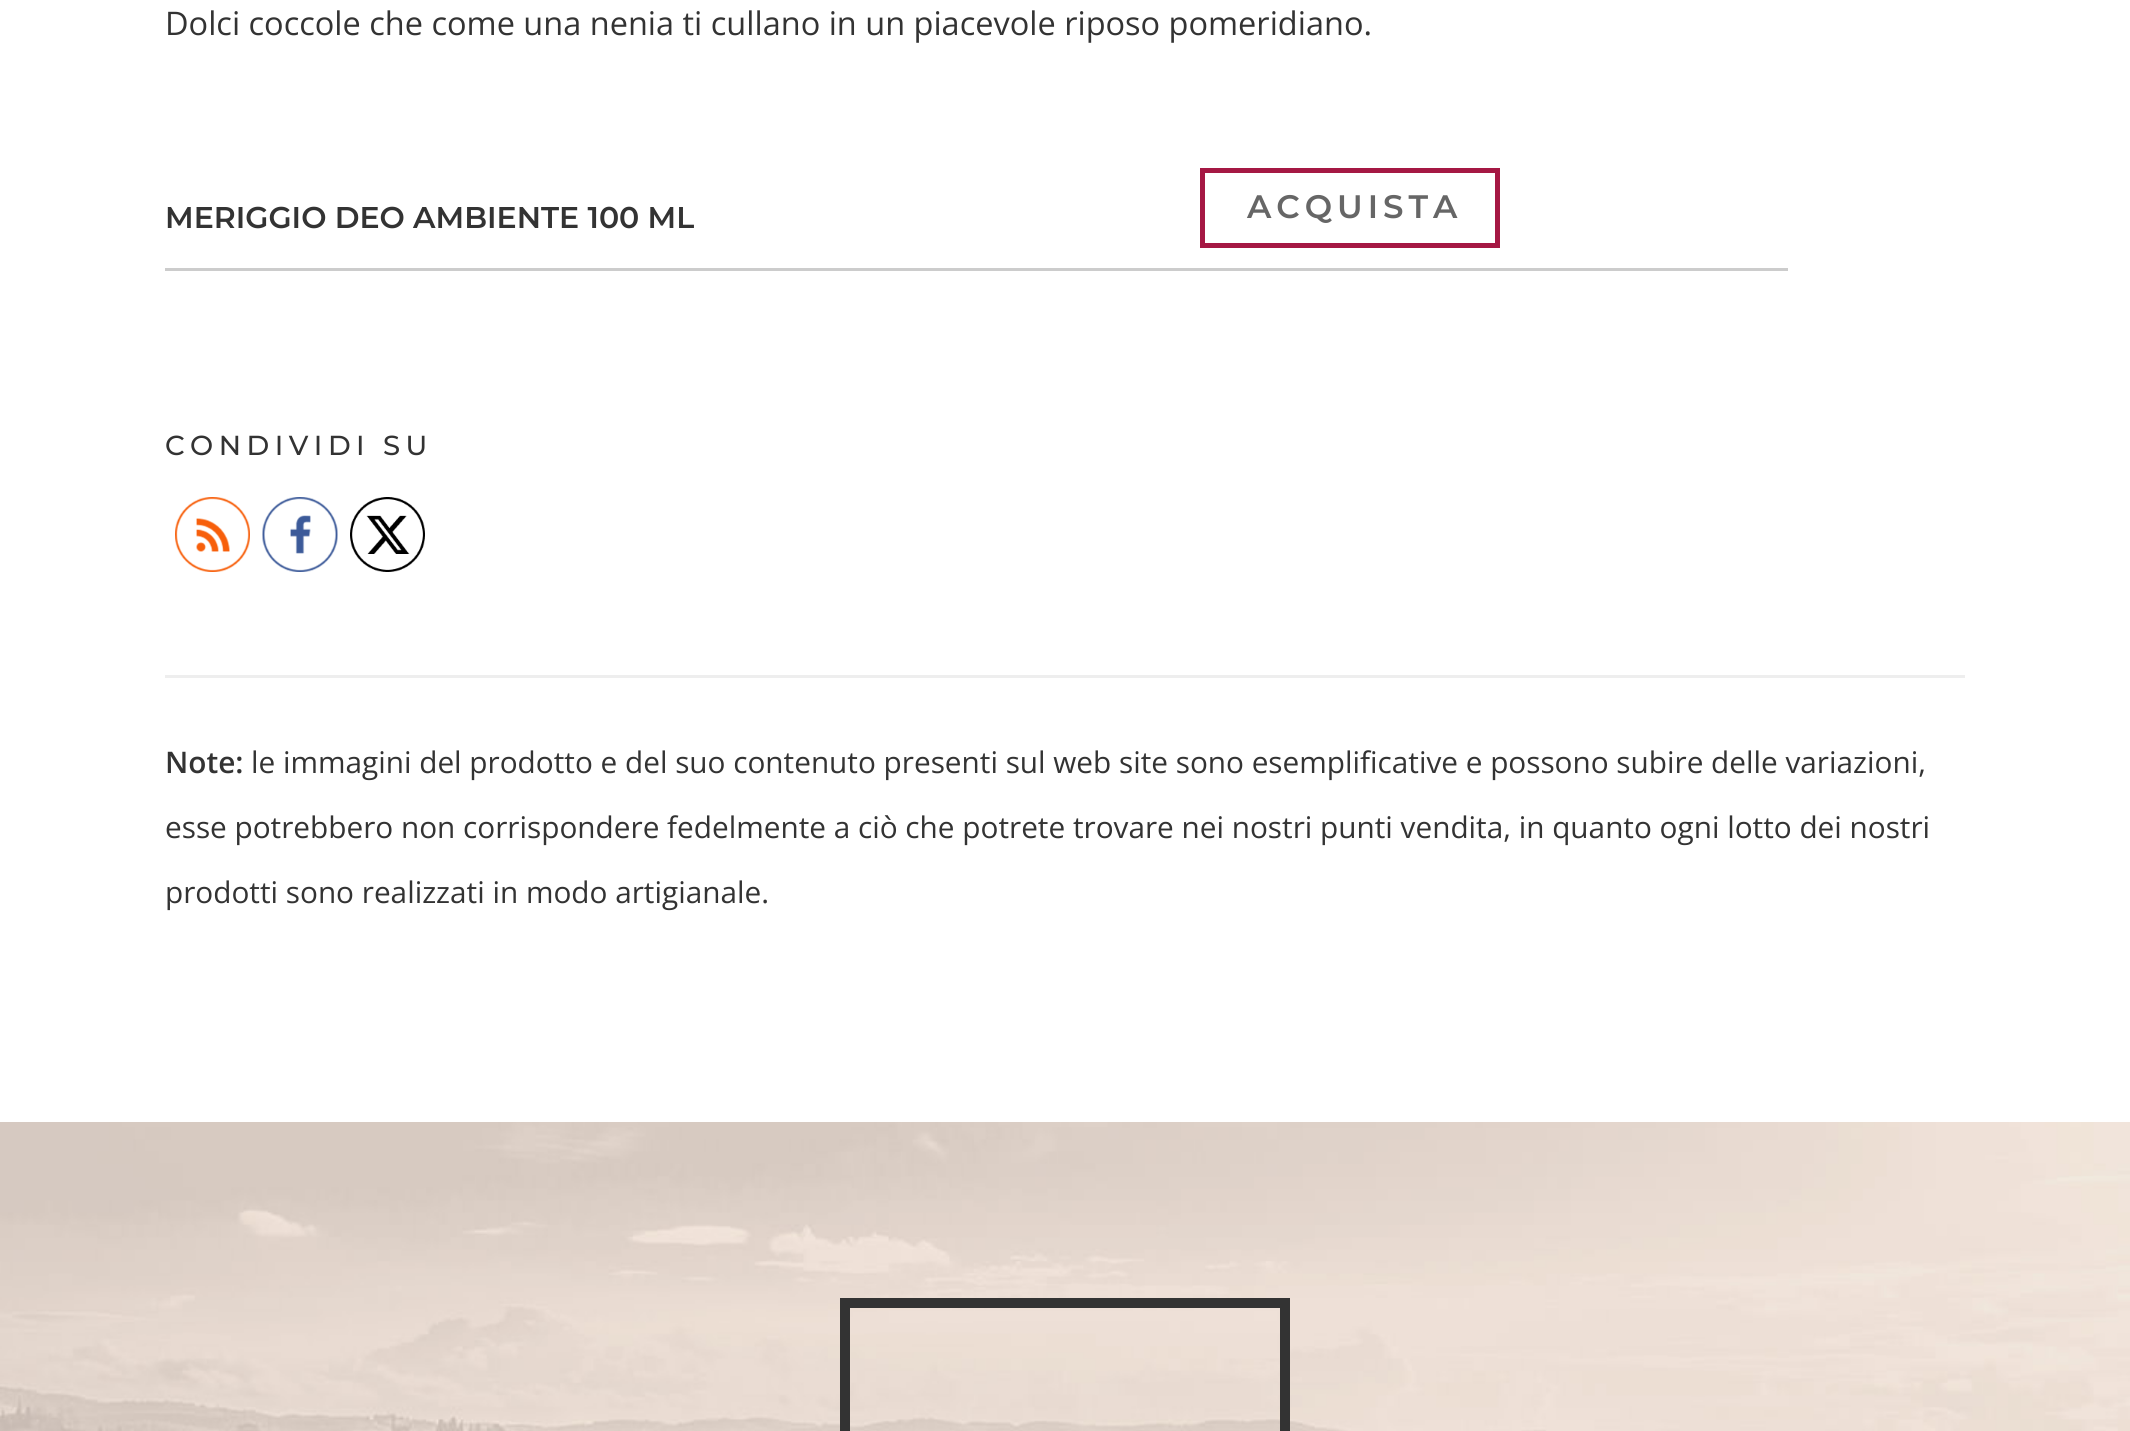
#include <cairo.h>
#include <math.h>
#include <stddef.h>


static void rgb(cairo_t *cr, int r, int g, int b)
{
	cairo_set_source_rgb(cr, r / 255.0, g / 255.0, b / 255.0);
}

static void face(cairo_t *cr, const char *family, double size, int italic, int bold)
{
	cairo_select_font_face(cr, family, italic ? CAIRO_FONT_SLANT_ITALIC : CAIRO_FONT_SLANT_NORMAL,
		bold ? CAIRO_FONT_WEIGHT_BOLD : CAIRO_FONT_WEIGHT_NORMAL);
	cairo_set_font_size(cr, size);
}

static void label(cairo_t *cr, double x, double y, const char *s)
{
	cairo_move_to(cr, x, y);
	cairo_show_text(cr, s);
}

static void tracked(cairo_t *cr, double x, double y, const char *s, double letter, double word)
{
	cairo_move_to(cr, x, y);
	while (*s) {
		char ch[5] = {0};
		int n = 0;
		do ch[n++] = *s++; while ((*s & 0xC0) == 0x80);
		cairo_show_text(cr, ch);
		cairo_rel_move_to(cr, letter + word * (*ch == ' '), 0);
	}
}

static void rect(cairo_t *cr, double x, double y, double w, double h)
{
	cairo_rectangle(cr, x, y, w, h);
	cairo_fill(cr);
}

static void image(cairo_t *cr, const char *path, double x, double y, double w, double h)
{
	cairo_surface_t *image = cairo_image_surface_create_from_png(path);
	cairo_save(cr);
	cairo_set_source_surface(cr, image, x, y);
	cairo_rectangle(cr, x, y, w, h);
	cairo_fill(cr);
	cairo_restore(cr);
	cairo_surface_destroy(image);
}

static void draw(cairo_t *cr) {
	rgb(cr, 255, 255, 255);
	cairo_paint(cr);
	face(cr, "Open Sans", 32.5, 0, 0);
	rgb(cr, 51, 51, 51);
	label(cr, 165, 35, "Dolci coccole che come una nenia ti cullano in un piacevole riposo pomeridiano.");
	rgb(cr, 204, 204, 204);
	rect(cr, 165, 268, 1623, 3);
	face(cr, "Montserrat SemiBold", 30, 0, 0);
	rgb(cr, 51, 51, 51);
	label(cr, 165, 228, "MERIGGIO DEO AMBIENTE 100 ML");
	rgb(cr, 165, 24, 68);
	rect(cr, 1200, 168, 300, 80);
	rgb(cr, 255, 255, 255);
	rect(cr, 1205, 173, 290, 70);
	face(cr, "Montserrat SemiBold", 32.5, 0, 0);
	rgb(cr, 102, 102, 102);
	tracked(cr, 1247, 218, "ACQUISTA", 5, 0);
	face(cr, "Montserrat Medium", 27.5, 0, 0);
	rgb(cr, 51, 51, 51);
	tracked(cr, 165, 455, "CONDIVIDI SU", 5.5, 0);
	image(cr, "image0.png", 175, 497, 75, 75);
	image(cr, "image1.png", 262, 497, 76, 75);
	image(cr, "image2.png", 350, 497, 75, 75);
	rgb(cr, 238, 238, 238);
	rect(cr, 165, 675, 1800, 3);
	face(cr, "Open Sans SemiBold", 29.75, 0, 0);
	rgb(cr, 51, 51, 51);
	label(cr, 165, 773, "Note:");
	face(cr, "Open Sans", 29.75, 0, 0);
	label(cr, 251, 773, "le immagini del prodotto e del suo contenuto presenti sul web site sono esemplificative e possono subire delle variazioni,");
	label(cr, 165, 838, "esse potrebbero non corrispondere fedelmente a ciò che potrete trovare nei nostri punti vendita, in quanto ogni lotto dei nostri");
	label(cr, 165, 903, "prodotti sono realizzati in modo artigianale.");
	image(cr, "image3.png", 0, 1122, 2130, 309);
	cairo_rectangle(cr, 845, 1303, 440, 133);
	cairo_set_line_width(cr, 10);
	cairo_stroke(cr);
}

int main(void) {
	cairo_surface_t *surface = cairo_image_surface_create(CAIRO_FORMAT_RGB24, 2130, 1431);
	cairo_t *cr = cairo_create(surface);
	cairo_font_options_t *options = cairo_font_options_create();
	cairo_font_options_set_hint_metrics(options, CAIRO_HINT_METRICS_OFF);
	cairo_font_options_set_hint_style(options, CAIRO_HINT_STYLE_NONE);
	cairo_set_font_options(cr, options);
	cairo_set_miter_limit(cr, 4);
	draw(cr);
	cairo_surface_write_to_png(surface, "render.png");
	cairo_font_options_destroy(options);
	cairo_destroy(cr);
	cairo_surface_destroy(surface);
	return 0;
}
